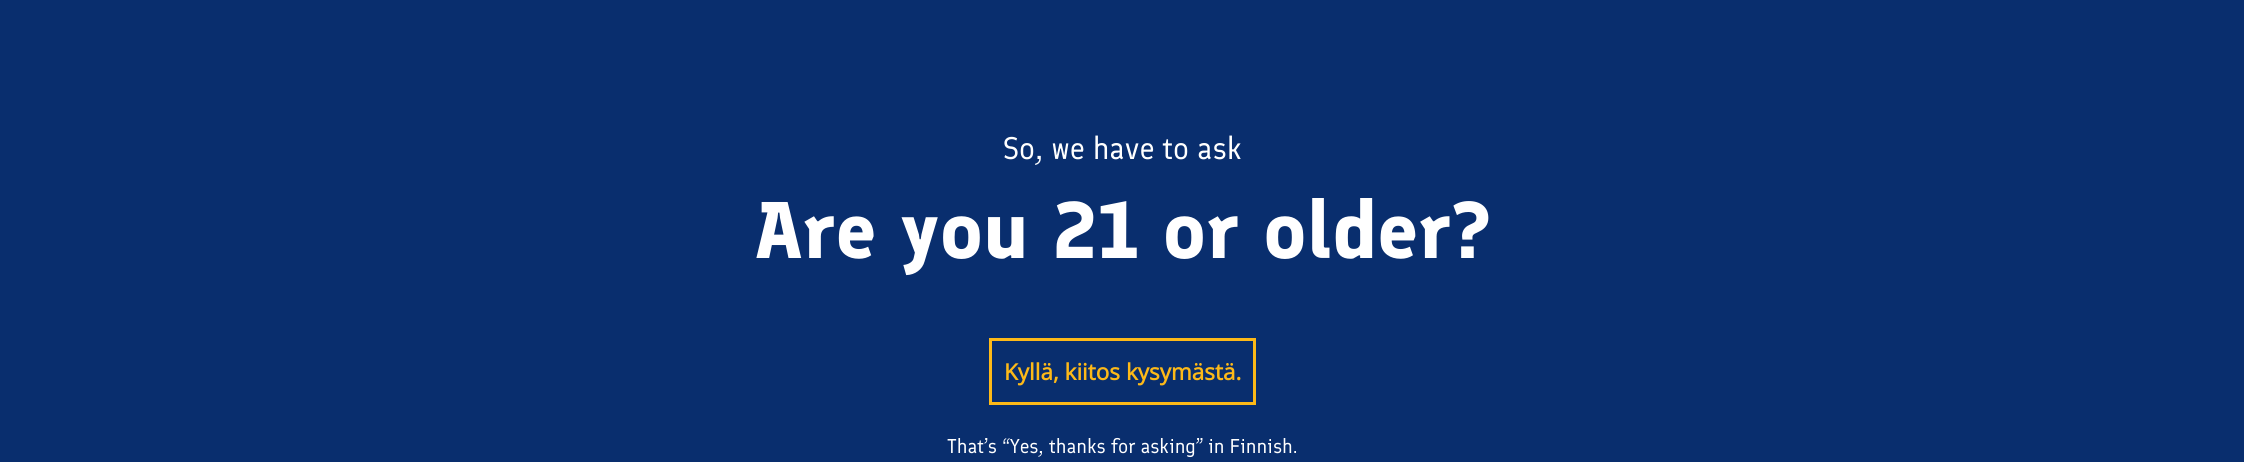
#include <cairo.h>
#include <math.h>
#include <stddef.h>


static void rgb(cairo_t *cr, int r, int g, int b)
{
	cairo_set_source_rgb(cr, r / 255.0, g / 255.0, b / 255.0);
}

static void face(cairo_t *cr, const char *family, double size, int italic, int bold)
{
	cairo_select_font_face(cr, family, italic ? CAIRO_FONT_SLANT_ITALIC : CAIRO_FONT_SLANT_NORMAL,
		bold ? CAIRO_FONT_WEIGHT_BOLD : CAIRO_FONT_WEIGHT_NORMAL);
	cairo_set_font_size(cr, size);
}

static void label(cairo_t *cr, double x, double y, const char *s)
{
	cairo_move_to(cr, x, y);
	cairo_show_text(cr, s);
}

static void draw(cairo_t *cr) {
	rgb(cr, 9, 46, 110);
	cairo_paint(cr);
	face(cr, "Finlandica", 31.25, 0, 0);
	rgb(cr, 255, 255, 255);
	label(cr, 1003, 159, "So, we have to ask");
	face(cr, "Finlandica", 80, 0, 1);
	label(cr, 754, 258, "Are you 21 or older?");
	cairo_rectangle(cr, 990.5, 339.5, 264, 64);
	rgb(cr, 253, 185, 24);
	cairo_set_line_width(cr, 3);
	cairo_stroke(cr);
	face(cr, "Open Sans", 22.5, 0, 1);
	label(cr, 1004, 380, "Kyllä, kiitos kysymästä.");
	face(cr, "Finlandica", 20, 0, 0);
	rgb(cr, 255, 255, 255);
	label(cr, 947, 453, "That’s “Yes, thanks for asking” in Finnish.");
}

int main(void) {
	cairo_surface_t *surface = cairo_image_surface_create(CAIRO_FORMAT_RGB24, 2244, 462);
	cairo_t *cr = cairo_create(surface);
	cairo_font_options_t *options = cairo_font_options_create();
	cairo_font_options_set_hint_metrics(options, CAIRO_HINT_METRICS_OFF);
	cairo_font_options_set_hint_style(options, CAIRO_HINT_STYLE_NONE);
	cairo_set_font_options(cr, options);
	cairo_set_miter_limit(cr, 4);
	draw(cr);
	cairo_surface_write_to_png(surface, "render.png");
	cairo_font_options_destroy(options);
	cairo_destroy(cr);
	cairo_surface_destroy(surface);
	return 0;
}
